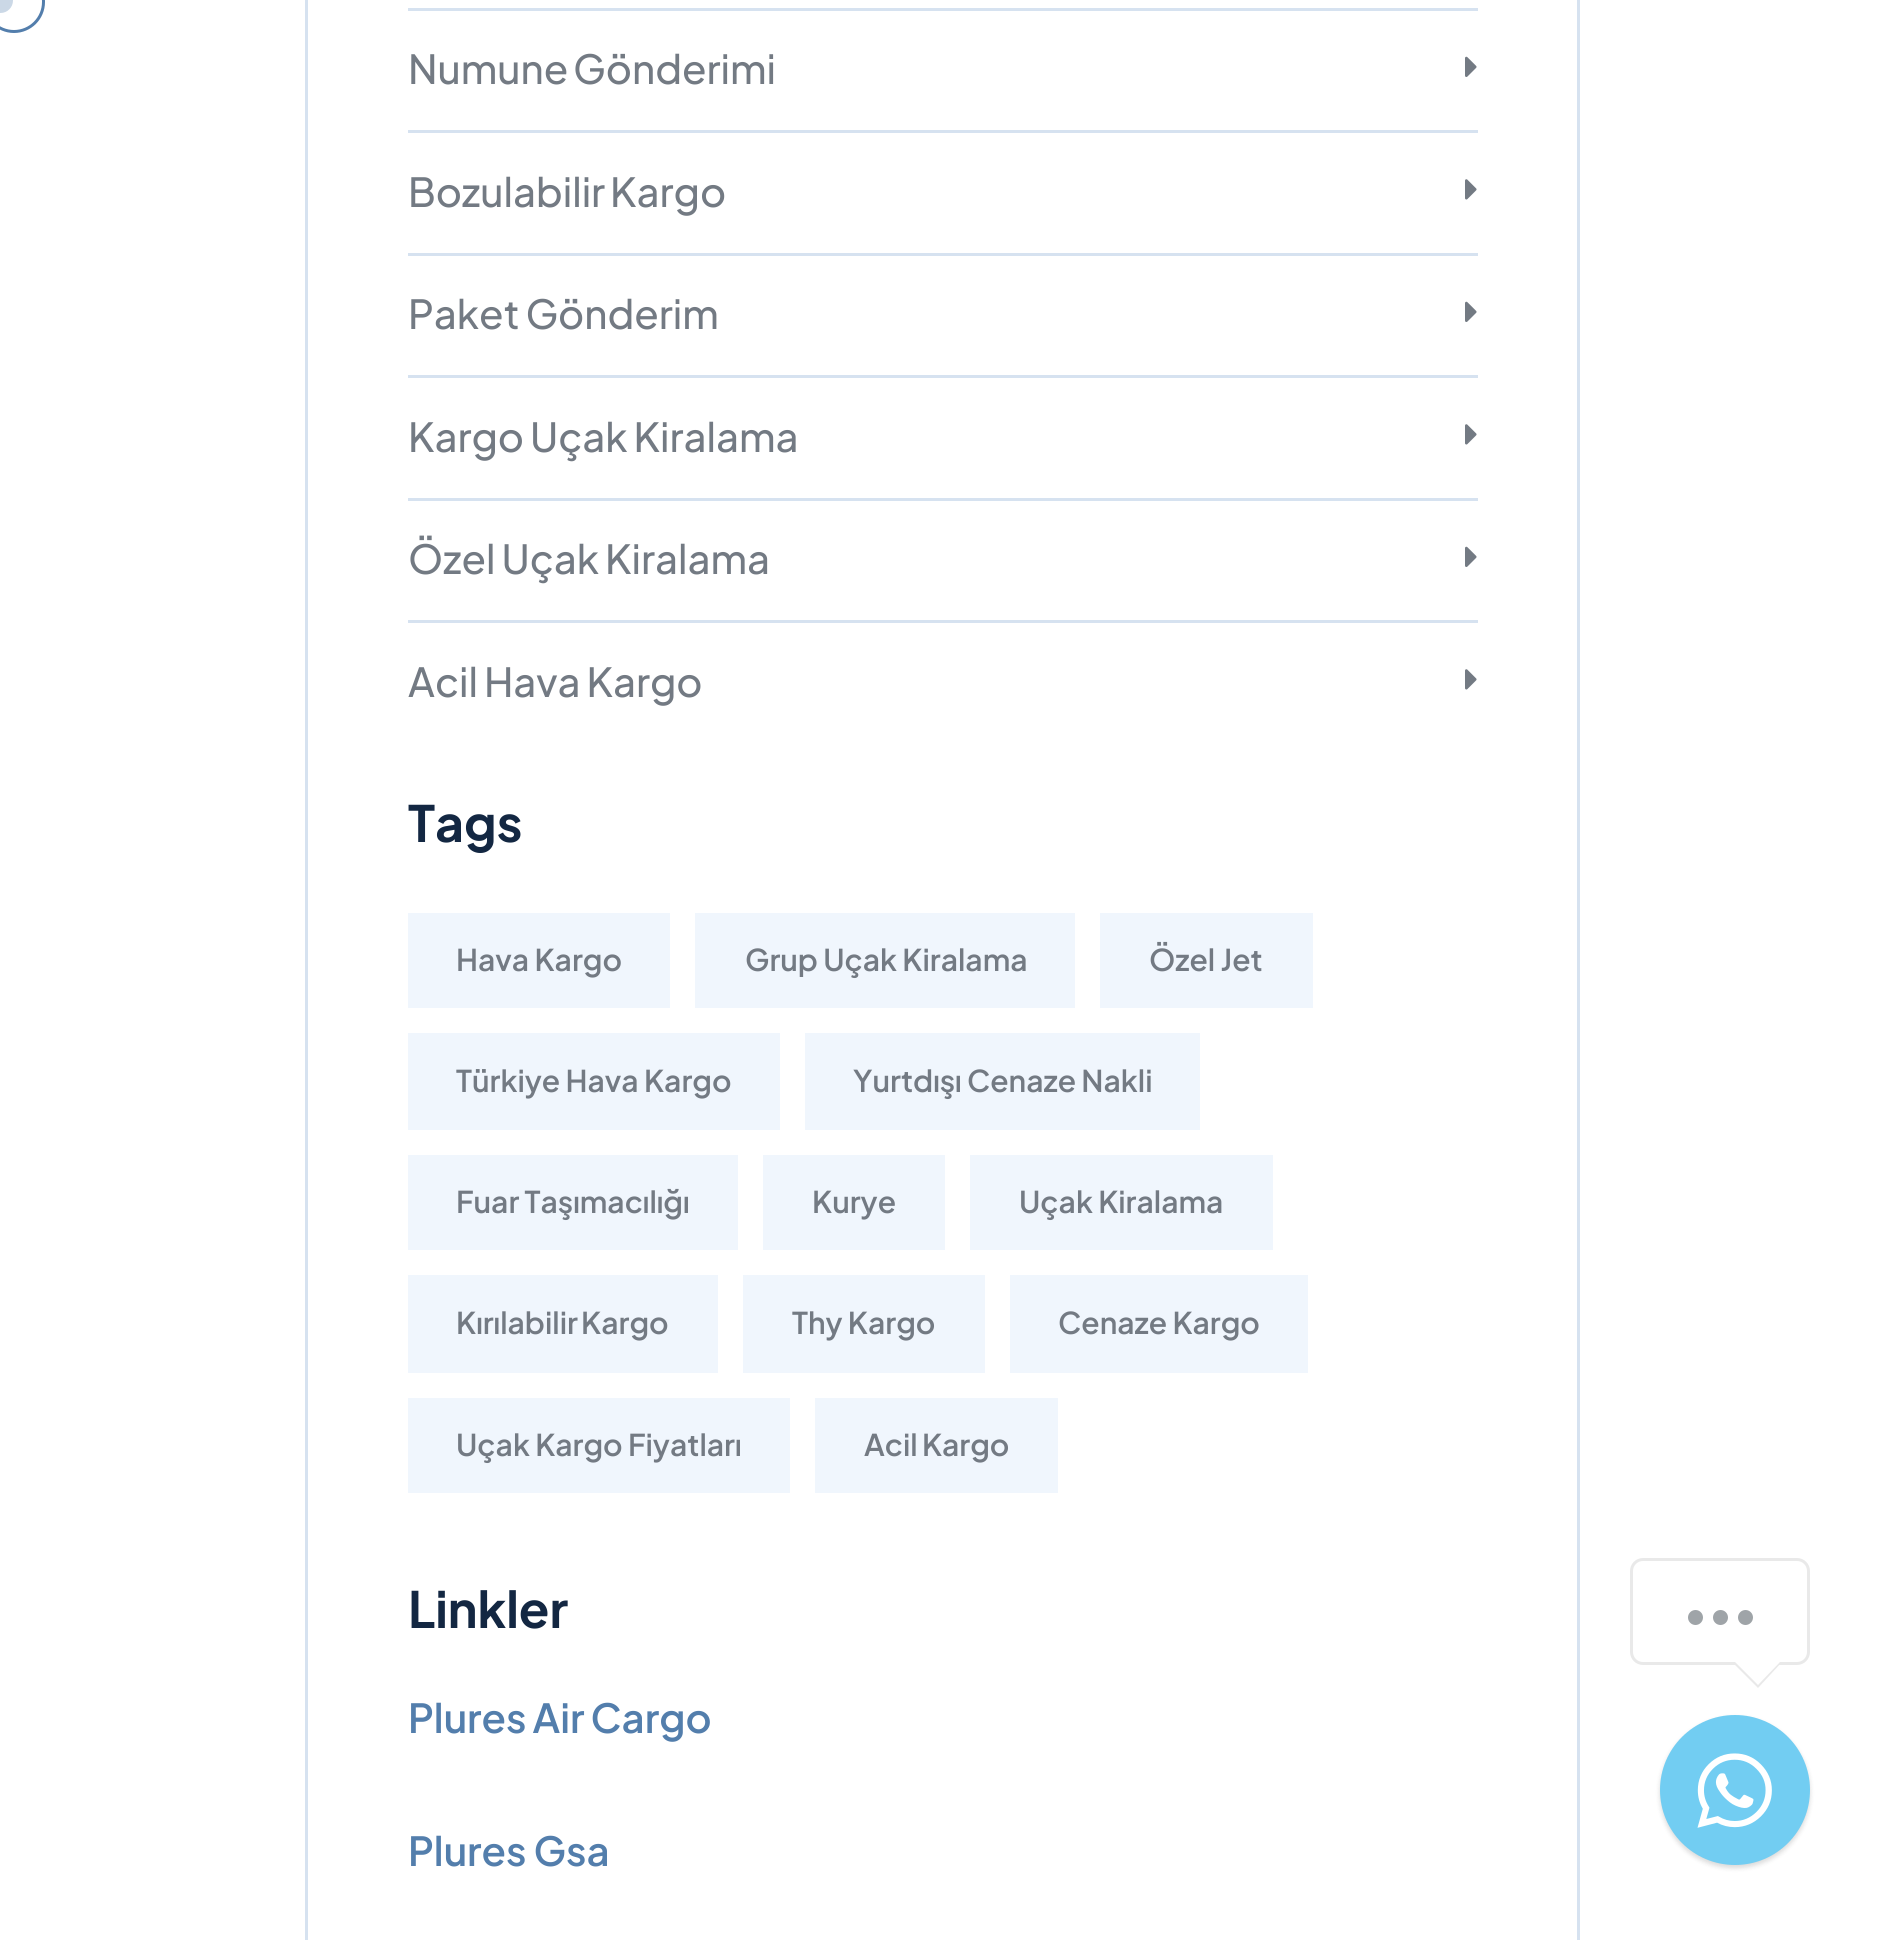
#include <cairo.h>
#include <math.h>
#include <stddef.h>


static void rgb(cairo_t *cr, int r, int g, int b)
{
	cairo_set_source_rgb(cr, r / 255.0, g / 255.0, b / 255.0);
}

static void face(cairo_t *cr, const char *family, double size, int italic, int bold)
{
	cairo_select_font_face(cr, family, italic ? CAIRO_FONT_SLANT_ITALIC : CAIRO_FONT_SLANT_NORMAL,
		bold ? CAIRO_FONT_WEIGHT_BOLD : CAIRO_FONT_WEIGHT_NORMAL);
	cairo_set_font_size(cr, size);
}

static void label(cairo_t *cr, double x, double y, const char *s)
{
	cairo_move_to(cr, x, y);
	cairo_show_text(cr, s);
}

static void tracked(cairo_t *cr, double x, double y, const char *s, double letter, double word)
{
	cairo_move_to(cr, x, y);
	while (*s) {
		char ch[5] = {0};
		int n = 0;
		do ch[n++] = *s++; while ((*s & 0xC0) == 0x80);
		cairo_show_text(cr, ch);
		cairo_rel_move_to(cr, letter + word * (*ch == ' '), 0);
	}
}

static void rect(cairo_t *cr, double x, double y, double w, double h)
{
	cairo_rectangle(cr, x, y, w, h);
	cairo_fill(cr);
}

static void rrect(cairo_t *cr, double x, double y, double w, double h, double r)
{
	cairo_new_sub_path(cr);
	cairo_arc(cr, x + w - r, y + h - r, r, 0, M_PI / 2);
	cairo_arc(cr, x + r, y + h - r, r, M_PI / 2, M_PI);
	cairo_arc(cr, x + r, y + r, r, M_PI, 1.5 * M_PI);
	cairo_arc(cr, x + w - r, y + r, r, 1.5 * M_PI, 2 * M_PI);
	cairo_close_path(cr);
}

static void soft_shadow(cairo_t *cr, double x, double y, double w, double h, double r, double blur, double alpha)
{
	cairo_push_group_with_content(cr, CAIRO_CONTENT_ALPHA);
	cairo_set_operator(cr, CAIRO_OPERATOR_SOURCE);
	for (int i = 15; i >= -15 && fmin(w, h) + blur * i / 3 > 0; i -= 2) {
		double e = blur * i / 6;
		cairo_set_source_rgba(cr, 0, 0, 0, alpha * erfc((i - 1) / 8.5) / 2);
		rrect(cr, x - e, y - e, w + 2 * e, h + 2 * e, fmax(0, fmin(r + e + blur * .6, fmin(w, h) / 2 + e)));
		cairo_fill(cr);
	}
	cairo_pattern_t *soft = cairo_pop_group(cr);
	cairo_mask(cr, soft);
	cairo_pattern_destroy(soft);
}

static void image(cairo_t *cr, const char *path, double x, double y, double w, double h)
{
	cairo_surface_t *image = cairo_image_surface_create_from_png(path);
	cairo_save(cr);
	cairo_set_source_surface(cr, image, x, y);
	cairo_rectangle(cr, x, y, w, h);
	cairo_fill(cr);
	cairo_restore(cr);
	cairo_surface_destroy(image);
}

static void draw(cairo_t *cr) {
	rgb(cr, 255, 255, 255);
	cairo_paint(cr);
	rrect(cr, -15.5, -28.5, 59, 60, 29.5);
	rgb(cr, 83, 126, 172);
	cairo_set_line_width(cr, 3);
	cairo_stroke(cr);
	rgb(cr, 203, 216, 230);
	cairo_arc(cr, 0.5, 0.5, 12.5, 0, 2 * M_PI);
	cairo_fill(cr);
	cairo_rectangle(cr, 306.5, -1.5, 1272, 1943);
	rgb(cr, 214, 226, 240);
	cairo_stroke(cr);
	rect(cr, 408, 8, 1070, 3);
	rect(cr, 408, 130, 1070, 3);
	face(cr, "Plus Jakarta Sans Medium", 40, 0, 0);
	rgb(cr, 115, 122, 131);
	tracked(cr, 408, 84, "Numune Gönderimi", 0, -2);
	image(cr, "image0.png", 1465, 56, 12, 21);
	rgb(cr, 214, 226, 240);
	rect(cr, 408, 253, 1070, 3);
	rgb(cr, 115, 122, 131);
	tracked(cr, 408, 207, "Bozulabilir Kargo", 0, -2);
	image(cr, "image1.png", 1465, 179, 12, 21);
	rgb(cr, 214, 226, 240);
	rect(cr, 408, 375, 1070, 3);
	rgb(cr, 115, 122, 131);
	tracked(cr, 408, 329, "Paket Gönderim", 0, -1);
	image(cr, "image0.png", 1465, 301, 12, 21);
	rgb(cr, 214, 226, 240);
	rect(cr, 408, 498, 1070, 3);
	rgb(cr, 115, 122, 131);
	tracked(cr, 408, 452, "Kargo Uçak Kiralama", 0, -1);
	image(cr, "image1.png", 1465, 424, 12, 21);
	rgb(cr, 214, 226, 240);
	rect(cr, 408, 620, 1070, 3);
	rgb(cr, 115, 122, 131);
	tracked(cr, 408, 574, "Özel Uçak Kiralama", 0, -1);
	image(cr, "image0.png", 1465, 546, 12, 21);
	tracked(cr, 408, 697, "Acil Hava Kargo", 0, -1);
	image(cr, "image1.png", 1465, 669, 12, 21);
	face(cr, "Plus Jakarta Sans", 50, 0, 1);
	rgb(cr, 19, 39, 66);
	label(cr, 408, 842, "Tags");
	rgb(cr, 240, 246, 253);
	rect(cr, 408, 913, 262, 95);
	face(cr, "Plus Jakarta Sans SemiBold", 30, 0, 0);
	rgb(cr, 115, 122, 131);
	label(cr, 456, 971, "Hava Kargo");
	rgb(cr, 240, 246, 253);
	rect(cr, 695, 913, 380, 95);
	rgb(cr, 115, 122, 131);
	label(cr, 745, 971, "Grup Uçak Kiralama");
	rgb(cr, 240, 246, 253);
	rect(cr, 1100, 913, 213, 95);
	rgb(cr, 115, 122, 131);
	label(cr, 1149, 971, "Özel Jet");
	rgb(cr, 240, 246, 253);
	rect(cr, 408, 1033, 372, 97);
	rgb(cr, 115, 122, 131);
	label(cr, 456, 1092, "Türkiye Hava Kargo");
	rgb(cr, 240, 246, 253);
	rect(cr, 805, 1033, 395, 97);
	rgb(cr, 115, 122, 131);
	label(cr, 853, 1092, "Yurtdışı Cenaze Nakli");
	rgb(cr, 240, 246, 253);
	rect(cr, 408, 1155, 330, 95);
	rgb(cr, 115, 122, 131);
	label(cr, 456, 1213, "Fuar Taşımacılığı");
	rgb(cr, 240, 246, 253);
	rect(cr, 763, 1155, 182, 95);
	rgb(cr, 115, 122, 131);
	label(cr, 812, 1213, "Kurye");
	rgb(cr, 240, 246, 253);
	rect(cr, 970, 1155, 303, 95);
	rgb(cr, 115, 122, 131);
	label(cr, 1019, 1213, "Uçak Kiralama");
	rgb(cr, 240, 246, 253);
	rect(cr, 408, 1275, 310, 98);
	rgb(cr, 115, 122, 131);
	tracked(cr, 456, 1334, "Kırılabilir Kargo", 0, -2);
	rgb(cr, 240, 246, 253);
	rect(cr, 743, 1275, 242, 98);
	rgb(cr, 115, 122, 131);
	label(cr, 792, 1334, "Thy Kargo");
	rgb(cr, 240, 246, 253);
	rect(cr, 1010, 1275, 298, 98);
	rgb(cr, 115, 122, 131);
	label(cr, 1058, 1334, "Cenaze Kargo");
	rgb(cr, 240, 246, 253);
	rect(cr, 408, 1398, 382, 95);
	rgb(cr, 115, 122, 131);
	label(cr, 456, 1456, "Uçak Kargo Fiyatları");
	rgb(cr, 240, 246, 253);
	rect(cr, 815, 1398, 243, 95);
	rgb(cr, 115, 122, 131);
	tracked(cr, 864, 1456, "Acil Kargo", 0, -1);
	face(cr, "Plus Jakarta Sans", 50, 0, 1);
	rgb(cr, 19, 39, 66);
	label(cr, 408, 1628, "Linkler");
	face(cr, "Plus Jakarta Sans SemiBold", 40, 0, 0);
	rgb(cr, 83, 126, 172);
	tracked(cr, 408, 1733, "Plures Air Cargo", 0, -1);
	label(cr, 408, 1866, "Plures Gsa");
	rrect(cr, 1631.5, 1559.5, 177, 104, 11.5);
	rgb(cr, 233, 233, 233);
	cairo_stroke(cr);
	rgb(cr, 159, 164, 168);
	cairo_arc(cr, 1695.5, 1617.5, 7.5, 0, 2 * M_PI);
	cairo_fill(cr);
	cairo_arc(cr, 1720.5, 1617.5, 7.5, 0, 2 * M_PI);
	cairo_fill(cr);
	cairo_arc(cr, 1745.5, 1617.5, 7.5, 0, 2 * M_PI);
	cairo_fill(cr);
	rgb(cr, 233, 233, 233);
	cairo_new_path(cr);
	cairo_move_to(cr, 1732, 1662);
	cairo_line_to(cr, 1782, 1662);
	cairo_line_to(cr, 1758, 1688);
	cairo_close_path(cr);
	cairo_fill(cr);
	rgb(cr, 255, 255, 255);
	cairo_new_path(cr);
	cairo_move_to(cr, 1735, 1662);
	cairo_line_to(cr, 1780, 1662);
	cairo_line_to(cr, 1758, 1685);
	cairo_close_path(cr);
	cairo_fill(cr);
	rgb(cr, 0, 0, 0);
	soft_shadow(cr, 1660, 1718, 150, 150, 75, 2.5, 0.15);
	rgb(cr, 114, 205, 242);
	cairo_arc(cr, 1735, 1790, 75, 0, 2 * M_PI);
	cairo_fill(cr);
	image(cr, "image2.png", 1697, 1753, 75, 75);
}

int main(void) {
	cairo_surface_t *surface = cairo_image_surface_create(CAIRO_FORMAT_RGB24, 1885, 1940);
	cairo_t *cr = cairo_create(surface);
	cairo_font_options_t *options = cairo_font_options_create();
	cairo_font_options_set_hint_metrics(options, CAIRO_HINT_METRICS_OFF);
	cairo_font_options_set_hint_style(options, CAIRO_HINT_STYLE_NONE);
	cairo_set_font_options(cr, options);
	cairo_set_miter_limit(cr, 4);
	draw(cr);
	cairo_surface_write_to_png(surface, "render.png");
	cairo_font_options_destroy(options);
	cairo_destroy(cr);
	cairo_surface_destroy(surface);
	return 0;
}
